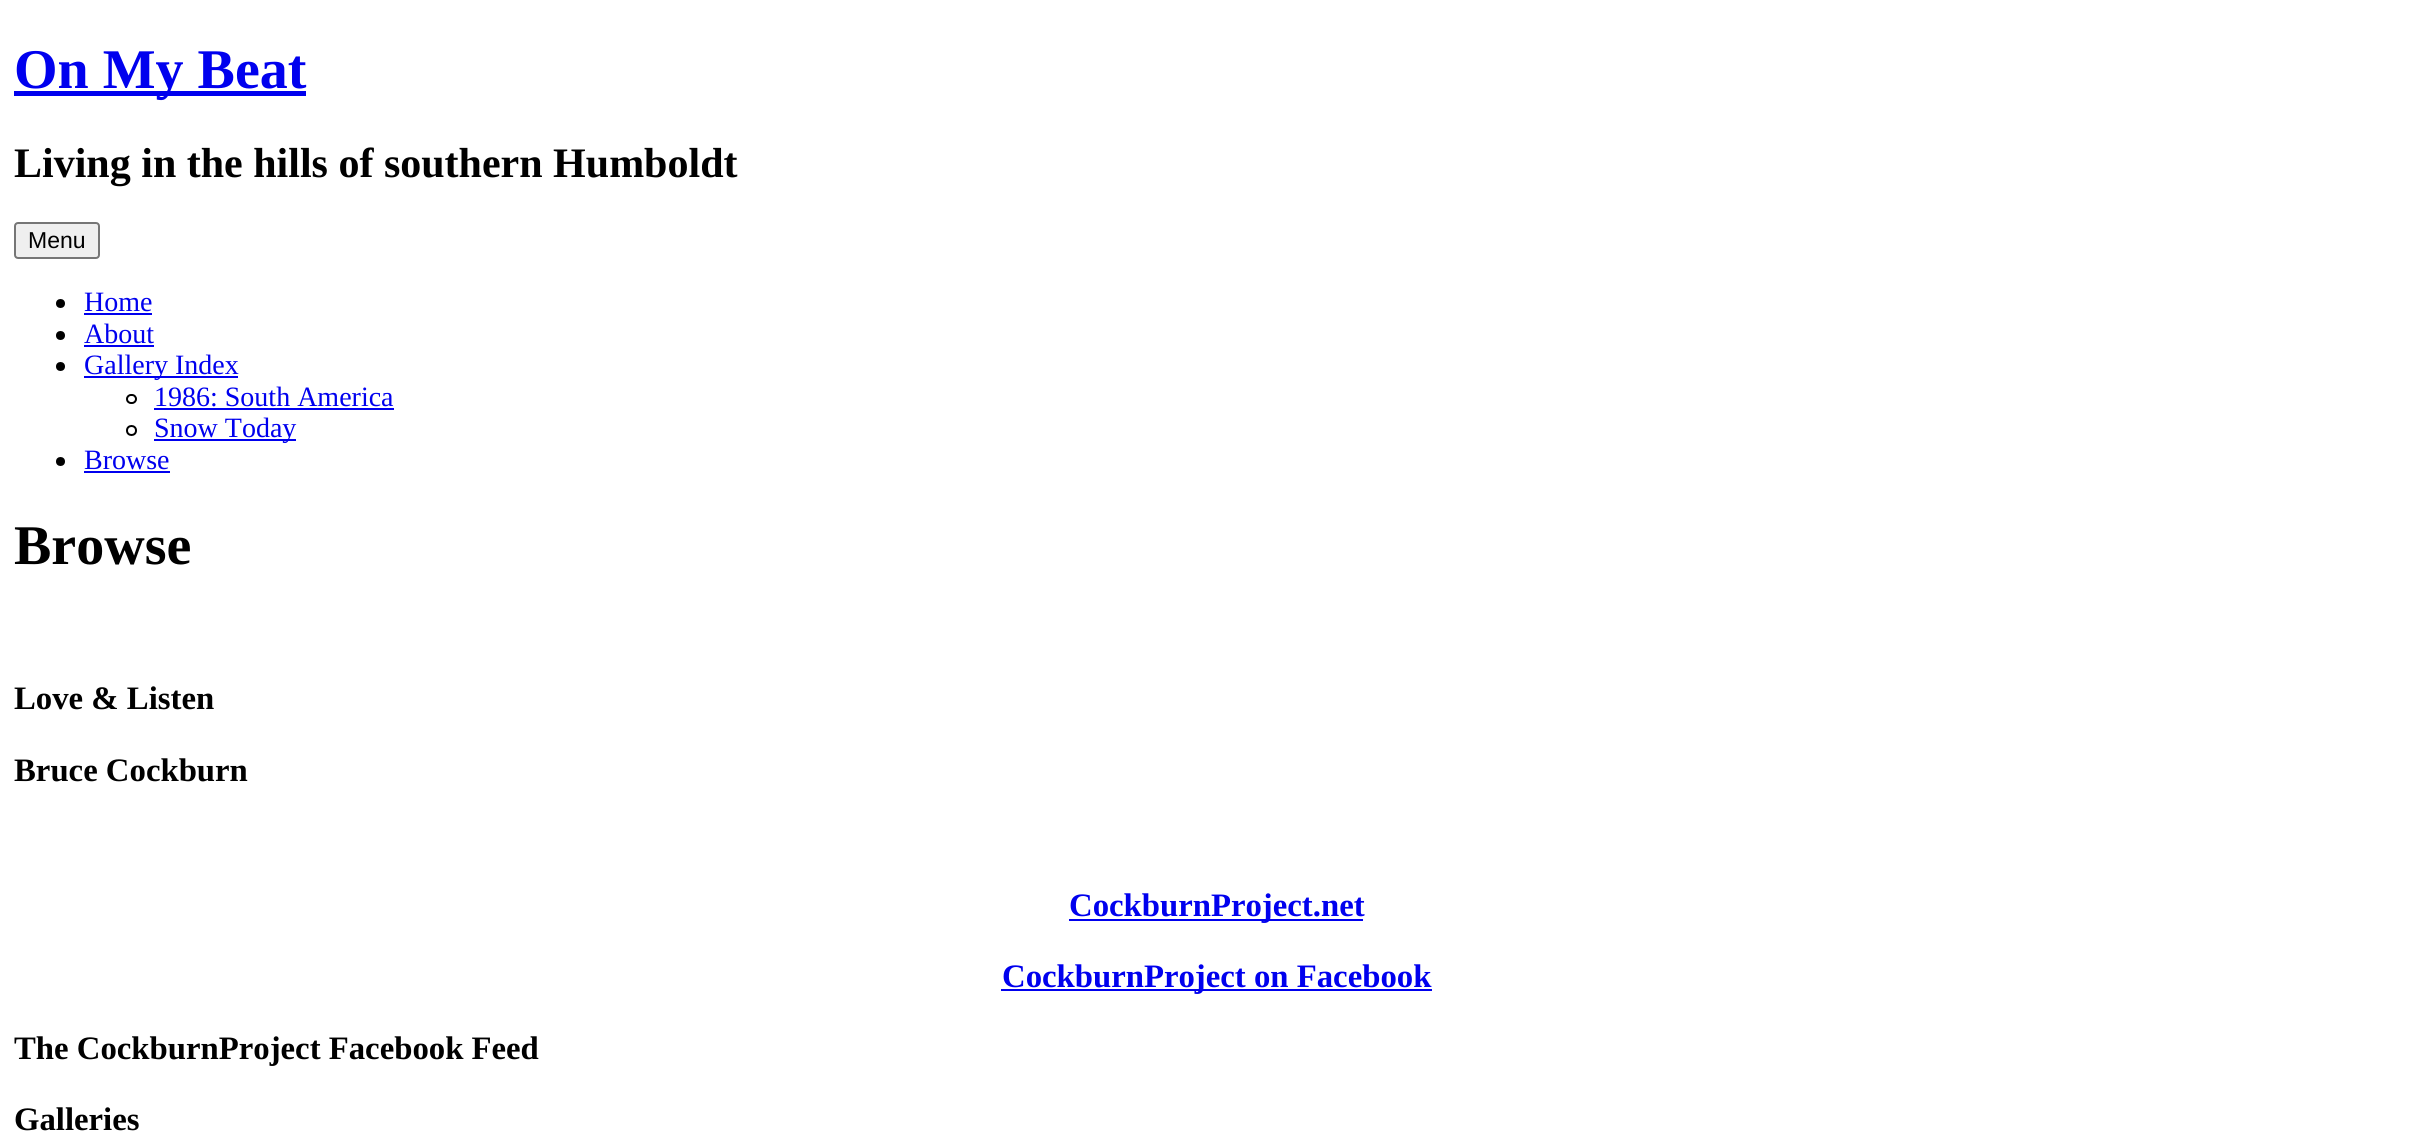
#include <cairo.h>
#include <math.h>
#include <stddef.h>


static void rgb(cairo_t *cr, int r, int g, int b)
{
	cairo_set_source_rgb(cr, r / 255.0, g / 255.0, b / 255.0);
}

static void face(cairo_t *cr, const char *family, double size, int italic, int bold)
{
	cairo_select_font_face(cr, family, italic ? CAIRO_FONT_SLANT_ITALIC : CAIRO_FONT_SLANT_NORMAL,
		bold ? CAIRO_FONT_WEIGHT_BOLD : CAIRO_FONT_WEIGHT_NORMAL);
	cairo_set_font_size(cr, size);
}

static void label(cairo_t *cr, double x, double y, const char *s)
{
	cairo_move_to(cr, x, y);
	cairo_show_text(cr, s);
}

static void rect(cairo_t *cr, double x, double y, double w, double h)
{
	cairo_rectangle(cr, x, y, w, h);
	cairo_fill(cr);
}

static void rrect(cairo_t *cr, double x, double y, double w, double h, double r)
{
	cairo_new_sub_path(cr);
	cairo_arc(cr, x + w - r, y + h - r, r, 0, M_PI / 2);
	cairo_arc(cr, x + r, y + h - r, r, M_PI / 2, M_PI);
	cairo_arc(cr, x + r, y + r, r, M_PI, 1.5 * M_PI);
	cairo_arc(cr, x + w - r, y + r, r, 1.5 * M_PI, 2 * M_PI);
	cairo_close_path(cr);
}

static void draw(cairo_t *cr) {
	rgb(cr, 255, 255, 255);
	cairo_paint(cr);
	rgb(cr, 0, 0, 238);
	rect(cr, 14, 91, 292, 5);
	face(cr, "Liberation Serif", 56, 0, 1);
	label(cr, 14, 88, "On My Beat");
	face(cr, "Liberation Serif", 42, 0, 1);
	rgb(cr, 0, 0, 0);
	label(cr, 14, 177, "Living in the hills of southern Humboldt");
	rgb(cr, 239, 239, 239);
	rrect(cr, 15, 223, 84, 35, 3);
	cairo_fill_preserve(cr);
	rgb(cr, 118, 118, 118);
	cairo_stroke(cr);
	face(cr, "Liberation Sans", 23, 0, 0);
	rgb(cr, 0, 0, 0);
	label(cr, 28, 248, "Menu");
	cairo_new_path(cr);
	cairo_arc(cr, 60.5, 303.5, 4.5, 0, 2 * M_PI);
	cairo_fill(cr);
	face(cr, "Liberation Serif", 28, 0, 0);
	rgb(cr, 0, 0, 238);
	label(cr, 84, 311, "Home");
	rect(cr, 84, 313, 68, 2);
	rgb(cr, 0, 0, 0);
	cairo_new_path(cr);
	cairo_arc(cr, 60.5, 335.5, 4.5, 0, 2 * M_PI);
	cairo_fill(cr);
	rgb(cr, 0, 0, 238);
	label(cr, 84, 343, "About");
	rect(cr, 84, 345, 70, 2);
	rgb(cr, 0, 0, 0);
	cairo_new_path(cr);
	cairo_arc(cr, 60.5, 366.5, 4.5, 0, 2 * M_PI);
	cairo_fill(cr);
	rgb(cr, 0, 0, 238);
	rect(cr, 84, 376, 154, 2);
	label(cr, 84, 374, "Gallery Index");
	rrect(cr, 127, 395, 9, 8, 4);
	rgb(cr, 0, 0, 0);
	cairo_stroke(cr);
	rgb(cr, 0, 0, 238);
	label(cr, 154, 406, "1986: South America");
	rect(cr, 154, 408, 240, 2);
	cairo_new_path(cr);
	cairo_arc(cr, 131.5, 430.5, 4.5, 0, 2 * M_PI);
	rgb(cr, 0, 0, 0);
	cairo_stroke(cr);
	rgb(cr, 0, 0, 238);
	rect(cr, 154, 439, 142, 2);
	label(cr, 154, 437, "Snow Today");
	rgb(cr, 0, 0, 0);
	cairo_new_path(cr);
	cairo_arc(cr, 60.5, 461.5, 4.5, 0, 2 * M_PI);
	cairo_fill(cr);
	rgb(cr, 0, 0, 238);
	label(cr, 84, 469, "Browse");
	rect(cr, 84, 471, 86, 2);
	face(cr, "Liberation Serif", 56, 0, 1);
	rgb(cr, 0, 0, 0);
	label(cr, 14, 564, "Browse");
	face(cr, "Liberation Serif", 32.75, 0, 1);
	label(cr, 14, 709, "Love & Listen");
	label(cr, 14, 781, "Bruce Cockburn");
	rgb(cr, 0, 0, 238);
	rect(cr, 1069, 919, 294, 2);
	label(cr, 1069, 916, "CockburnProject.net");
	rect(cr, 1001, 989, 431, 2);
	label(cr, 1002, 987, "CockburnProject on Facebook");
	rgb(cr, 0, 0, 0);
	label(cr, 14, 1059, "The CockburnProject Facebook Feed");
	label(cr, 14, 1130, "Galleries");
}

int main(void) {
	cairo_surface_t *surface = cairo_image_surface_create(CAIRO_FORMAT_RGB24, 2432, 1133);
	cairo_t *cr = cairo_create(surface);
	cairo_font_options_t *options = cairo_font_options_create();
	cairo_font_options_set_hint_metrics(options, CAIRO_HINT_METRICS_OFF);
	cairo_font_options_set_hint_style(options, CAIRO_HINT_STYLE_NONE);
	cairo_set_font_options(cr, options);
	cairo_set_miter_limit(cr, 4);
	draw(cr);
	cairo_surface_write_to_png(surface, "render.png");
	cairo_font_options_destroy(options);
	cairo_destroy(cr);
	cairo_surface_destroy(surface);
	return 0;
}
